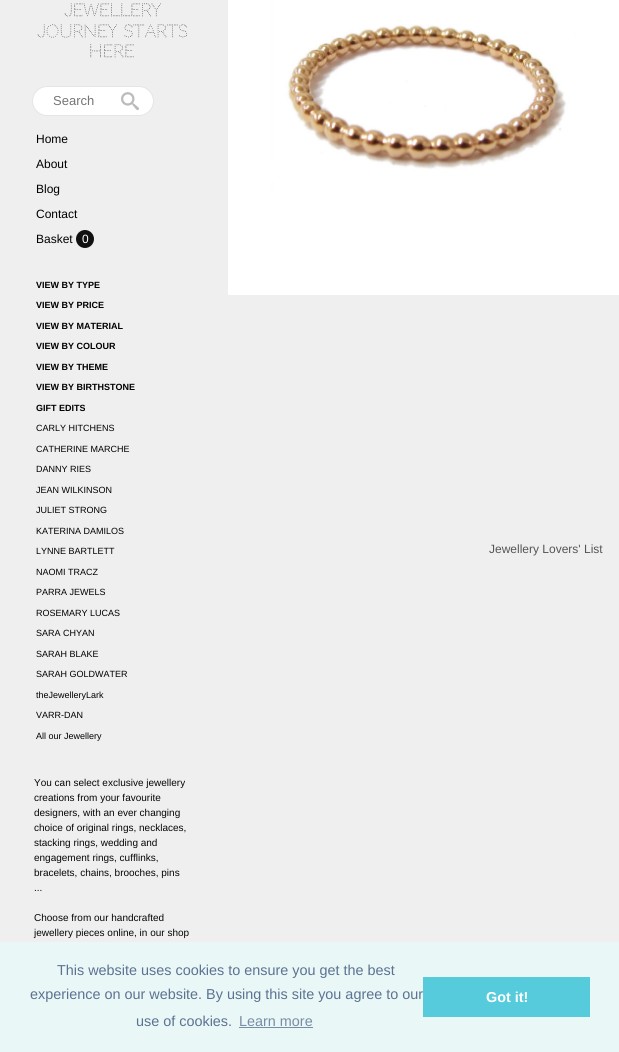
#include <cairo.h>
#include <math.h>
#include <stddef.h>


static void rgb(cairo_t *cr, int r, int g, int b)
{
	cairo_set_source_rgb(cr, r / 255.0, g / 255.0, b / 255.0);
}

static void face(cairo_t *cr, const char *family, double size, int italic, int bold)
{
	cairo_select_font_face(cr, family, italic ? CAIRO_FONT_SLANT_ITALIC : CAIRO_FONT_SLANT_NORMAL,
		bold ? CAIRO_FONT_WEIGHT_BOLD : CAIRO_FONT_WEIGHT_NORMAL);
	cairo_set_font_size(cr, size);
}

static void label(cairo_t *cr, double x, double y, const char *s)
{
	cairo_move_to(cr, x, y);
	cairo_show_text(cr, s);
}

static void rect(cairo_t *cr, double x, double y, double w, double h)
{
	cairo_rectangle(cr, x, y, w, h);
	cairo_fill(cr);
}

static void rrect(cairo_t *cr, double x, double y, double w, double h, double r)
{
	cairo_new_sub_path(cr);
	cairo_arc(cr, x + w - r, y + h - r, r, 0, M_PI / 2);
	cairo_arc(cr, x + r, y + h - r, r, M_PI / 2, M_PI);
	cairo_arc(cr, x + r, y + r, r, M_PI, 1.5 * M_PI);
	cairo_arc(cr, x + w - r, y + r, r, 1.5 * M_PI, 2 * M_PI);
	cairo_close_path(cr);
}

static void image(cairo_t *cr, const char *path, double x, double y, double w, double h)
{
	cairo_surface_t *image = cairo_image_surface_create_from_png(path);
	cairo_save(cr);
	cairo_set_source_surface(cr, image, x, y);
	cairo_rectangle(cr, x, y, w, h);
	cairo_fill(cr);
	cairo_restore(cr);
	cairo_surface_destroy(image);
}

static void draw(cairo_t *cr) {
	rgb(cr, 239, 239, 239);
	cairo_paint(cr);
	face(cr, "Codystar", 17, 0, 0);
	rgb(cr, 0, 0, 0);
	label(cr, 64, 16, "jewellery");
	label(cr, 37, 37, "journey starts");
	label(cr, 89, 57, "here");
	rgb(cr, 255, 255, 255);
	rrect(cr, 32.5, 86.5, 121, 29, 14.5);
	cairo_fill_preserve(cr);
	rgb(cr, 229, 229, 229);
	cairo_set_line_width(cr, 1);
	cairo_stroke(cr);
	face(cr, "Liberation Sans", 13, 0, 0);
	rgb(cr, 117, 117, 117);
	label(cr, 53, 105, "Search");
	image(cr, "image0.png", 121, 92, 18, 19);
	face(cr, "Liberation Sans", 12, 0, 0);
	rgb(cr, 0, 0, 0);
	label(cr, 36, 143, "Home");
	label(cr, 36, 168, "About");
	label(cr, 36, 193, "Blog");
	label(cr, 36, 218, "Contact");
	label(cr, 36, 243, "Basket");
	rgb(cr, 17, 17, 17);
	cairo_new_path(cr);
	cairo_arc(cr, 85, 239, 9, 0, 2 * M_PI);
	cairo_fill(cr);
	rgb(cr, 255, 255, 255);
	label(cr, 82, 243, "0");
	face(cr, "Liberation Sans", 9, 0, 1);
	rgb(cr, 0, 0, 0);
	label(cr, 36, 288, "VIEW BY TYPE");
	label(cr, 36, 308, "VIEW BY PRICE");
	label(cr, 36, 329, "VIEW BY MATERIAL");
	label(cr, 36, 349, "VIEW BY COLOUR");
	label(cr, 36, 370, "VIEW BY THEME");
	label(cr, 36, 390, "VIEW BY BIRTHSTONE");
	label(cr, 36, 411, "GIFT EDITS");
	face(cr, "Liberation Sans", 9, 0, 0);
	label(cr, 36, 431, "CARLY HITCHENS");
	label(cr, 36, 452, "CATHERINE MARCHE");
	label(cr, 36, 472, "DANNY RIES");
	label(cr, 36, 493, "JEAN WILKINSON");
	label(cr, 36, 513, "JULIET STRONG");
	label(cr, 36, 534, "KATERINA DAMILOS");
	label(cr, 36, 554, "LYNNE BARTLETT");
	label(cr, 36, 575, "NAOMI TRACZ");
	label(cr, 36, 595, "PARRA JEWELS");
	label(cr, 36, 616, "ROSEMARY LUCAS");
	label(cr, 36, 636, "SARA CHYAN");
	label(cr, 36, 657, "SARAH BLAKE");
	label(cr, 36, 677, "SARAH GOLDWATER");
	label(cr, 36, 698, "theJewelleryLark");
	label(cr, 36, 718, "VARR-DAN");
	label(cr, 36, 739, "All our Jewellery");
	face(cr, "Liberation Sans", 10, 0, 0);
	rgb(cr, 6, 6, 6);
	label(cr, 34, 786, "You can select exclusive jewellery");
	label(cr, 34, 801, "creations from your favourite");
	label(cr, 34, 816, "designers, with an ever changing");
	label(cr, 34, 831, "choice of original rings, necklaces,");
	label(cr, 34, 846, "stacking rings, wedding and");
	label(cr, 34, 861, "engagement rings, cufflinks,");
	label(cr, 34, 876, "bracelets, chains, brooches, pins");
	label(cr, 34, 891, "...");
	label(cr, 34, 921, "Choose from our handcrafted");
	label(cr, 34, 936, "jewellery pieces online, in our shop");
	image(cr, "image1.png", 228, 0, 391, 295);
	face(cr, "Liberation Sans", 12, 0, 0);
	rgb(cr, 85, 85, 85);
	label(cr, 489, 553, "Jewellery Lovers' List");
	rgb(cr, 234, 247, 247);
	rect(cr, 0, 942, 619, 110);
	face(cr, "Liberation Sans", 14.4, 0, 0);
	rgb(cr, 92, 114, 145);
	label(cr, 57, 975, "This website uses cookies to ensure you get the best");
	label(cr, 30, 999, "experience on our website. By using this site you agree to our");
	label(cr, 136, 1026, "use of cookies.");
	rgb(cr, 120, 141, 165);
	label(cr, 239, 1026, "Learn more");
	rect(cr, 239, 1027, 74, 1);
	rgb(cr, 86, 203, 219);
	rect(cr, 423, 977, 167, 40);
	face(cr, "Liberation Sans", 14.4, 0, 1);
	rgb(cr, 255, 255, 255);
	label(cr, 486, 1002, "Got it!");
}

int main(void) {
	cairo_surface_t *surface = cairo_image_surface_create(CAIRO_FORMAT_RGB24, 619, 1052);
	cairo_t *cr = cairo_create(surface);
	cairo_font_options_t *options = cairo_font_options_create();
	cairo_font_options_set_hint_metrics(options, CAIRO_HINT_METRICS_OFF);
	cairo_font_options_set_hint_style(options, CAIRO_HINT_STYLE_NONE);
	cairo_set_font_options(cr, options);
	cairo_set_miter_limit(cr, 4);
	draw(cr);
	cairo_surface_write_to_png(surface, "render.png");
	cairo_font_options_destroy(options);
	cairo_destroy(cr);
	cairo_surface_destroy(surface);
	return 0;
}
